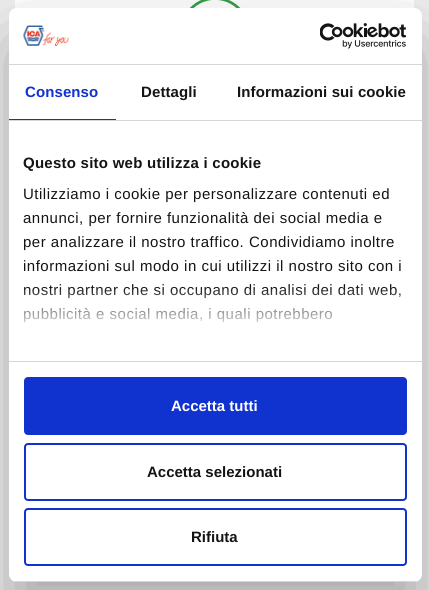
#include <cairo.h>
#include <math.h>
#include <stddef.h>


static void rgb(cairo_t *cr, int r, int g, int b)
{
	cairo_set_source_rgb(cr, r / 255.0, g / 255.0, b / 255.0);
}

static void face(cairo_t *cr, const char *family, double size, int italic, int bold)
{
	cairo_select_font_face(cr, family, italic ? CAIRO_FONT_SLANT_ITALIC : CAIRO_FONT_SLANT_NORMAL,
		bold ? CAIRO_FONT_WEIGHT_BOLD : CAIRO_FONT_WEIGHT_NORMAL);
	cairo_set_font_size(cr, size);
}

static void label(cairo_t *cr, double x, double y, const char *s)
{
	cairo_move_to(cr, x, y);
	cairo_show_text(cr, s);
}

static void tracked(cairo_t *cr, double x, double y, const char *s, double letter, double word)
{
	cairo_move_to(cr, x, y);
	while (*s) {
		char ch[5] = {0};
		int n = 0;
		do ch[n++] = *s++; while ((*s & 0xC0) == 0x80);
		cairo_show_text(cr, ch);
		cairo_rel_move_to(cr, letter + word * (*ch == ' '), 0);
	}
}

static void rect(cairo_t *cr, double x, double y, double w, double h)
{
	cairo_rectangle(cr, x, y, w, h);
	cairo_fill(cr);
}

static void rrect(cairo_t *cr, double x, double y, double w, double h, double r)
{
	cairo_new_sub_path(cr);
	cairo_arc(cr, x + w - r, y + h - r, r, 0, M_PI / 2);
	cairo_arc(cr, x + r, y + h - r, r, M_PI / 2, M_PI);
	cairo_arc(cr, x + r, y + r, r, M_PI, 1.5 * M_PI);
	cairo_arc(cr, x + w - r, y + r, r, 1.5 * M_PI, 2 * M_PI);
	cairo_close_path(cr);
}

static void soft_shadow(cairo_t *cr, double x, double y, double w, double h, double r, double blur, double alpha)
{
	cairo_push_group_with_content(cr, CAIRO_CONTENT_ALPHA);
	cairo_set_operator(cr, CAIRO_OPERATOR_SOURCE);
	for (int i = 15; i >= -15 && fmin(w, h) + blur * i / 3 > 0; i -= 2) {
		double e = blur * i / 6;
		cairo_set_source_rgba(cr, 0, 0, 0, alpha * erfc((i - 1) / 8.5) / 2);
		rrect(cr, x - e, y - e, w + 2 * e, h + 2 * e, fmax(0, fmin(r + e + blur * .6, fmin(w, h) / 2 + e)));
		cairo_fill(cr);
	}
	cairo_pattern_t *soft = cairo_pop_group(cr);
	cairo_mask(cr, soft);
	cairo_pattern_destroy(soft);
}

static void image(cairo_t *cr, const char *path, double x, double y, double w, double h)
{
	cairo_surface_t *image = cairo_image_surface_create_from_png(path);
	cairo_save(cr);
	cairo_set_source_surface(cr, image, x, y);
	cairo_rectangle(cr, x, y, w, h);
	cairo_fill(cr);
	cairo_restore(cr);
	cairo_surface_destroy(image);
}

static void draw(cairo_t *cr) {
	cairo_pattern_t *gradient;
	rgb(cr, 239, 239, 239);
	cairo_paint(cr);
	rgb(cr, 255, 255, 255);
	rect(cr, 15, 0, 399, 9);
	image(cr, "image0.png", 189, 0, 52, 8);
	rgb(cr, 0, 0, 0);
	soft_shadow(cr, 9, 40, 413, 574, 8, 34, 0.3);
	rgb(cr, 255, 255, 255);
	rrect(cr, 9, 8, 413, 574, 8);
	cairo_fill(cr);
	rgb(cr, 214, 214, 214);
	rect(cr, 9, 64, 413, 1);
	image(cr, "image1.png", 23, 25, 46, 21);
	image(cr, "image2.png", 320, 23, 87, 26);
	rect(cr, 9, 120, 413, 1);
	rgb(cr, 16, 50, 207);
	rect(cr, 9, 119, 107, 1);
	face(cr, "Liberation Sans", 15, 0, 1);
	tracked(cr, 25, 97, "Consenso", 0.1, 0);
	rgb(cr, 20, 20, 20);
	tracked(cr, 141, 97, "Dettagli", 0.1, 0);
	tracked(cr, 237, 97, "Informazioni sui cookie", 0.1, 0);
	rgb(cr, 214, 214, 214);
	rect(cr, 9, 361, 413, 1);
	rgb(cr, 20, 20, 20);
	tracked(cr, 23, 168, "Questo sito web utilizza i cookie", 0.25, 0);
	face(cr, "Liberation Sans", 15, 0, 0);
	tracked(cr, 23, 199, "Utilizziamo i cookie per personalizzare contenuti ed", 0.5, 0);
	tracked(cr, 23, 223, "annunci, per fornire funzionalità dei social media e", 0.5, 0);
	tracked(cr, 23, 247, "per analizzare il nostro traffico. Condividiamo inoltre", 0.5, 0);
	tracked(cr, 23, 271, "informazioni sul modo in cui utilizzi il nostro sito con i", 0.5, 0);
	tracked(cr, 23, 295, "nostri partner che si occupano di analisi dei dati web,", 0.5, 0);
	tracked(cr, 23, 319, "pubblicità e social media, i quali potrebbero", 0.5, 0);
	gradient = cairo_pattern_create_linear(209, 361, 209, 286);
	cairo_pattern_add_color_stop_rgba(gradient, 0, 1, 1, 1, 1);
	cairo_pattern_add_color_stop_rgba(gradient, 0.5, 1, 1, 1, 0.8);
	cairo_pattern_add_color_stop_rgba(gradient, 1, 1, 1, 1, 0);
	cairo_set_source(cr, gradient);
	cairo_pattern_destroy(gradient);
	rect(cr, 24, 287, 377, 36);
	cairo_save(cr);
	rrect(cr, 9, 8, 413, 574, 8);
	cairo_clip(cr);
	rgb(cr, 214, 214, 214);
	rect(cr, 9, 581, 413, 1);
	cairo_restore(cr);
	rgb(cr, 16, 50, 207);
	rrect(cr, 25, 378, 381, 56, 3);
	cairo_fill_preserve(cr);
	cairo_stroke(cr);
	face(cr, "Liberation Sans", 15, 0, 1);
	rgb(cr, 255, 255, 255);
	label(cr, 171, 411, "Accetta tutti");
	rrect(cr, 25, 444, 381, 56, 3);
	rgb(cr, 16, 50, 207);
	cairo_stroke(cr);
	rgb(cr, 20, 20, 20);
	label(cr, 147, 477, "Accetta selezionati");
	rrect(cr, 25, 509, 381, 56, 3);
	rgb(cr, 16, 50, 207);
	cairo_stroke(cr);
	rgb(cr, 20, 20, 20);
	label(cr, 191, 542, "Rifiuta");
}

int main(void) {
	cairo_surface_t *surface = cairo_image_surface_create(CAIRO_FORMAT_RGB24, 429, 590);
	cairo_t *cr = cairo_create(surface);
	cairo_font_options_t *options = cairo_font_options_create();
	cairo_font_options_set_hint_metrics(options, CAIRO_HINT_METRICS_OFF);
	cairo_font_options_set_hint_style(options, CAIRO_HINT_STYLE_NONE);
	cairo_set_font_options(cr, options);
	cairo_set_miter_limit(cr, 4);
	draw(cr);
	cairo_surface_write_to_png(surface, "render.png");
	cairo_font_options_destroy(options);
	cairo_destroy(cr);
	cairo_surface_destroy(surface);
	return 0;
}
